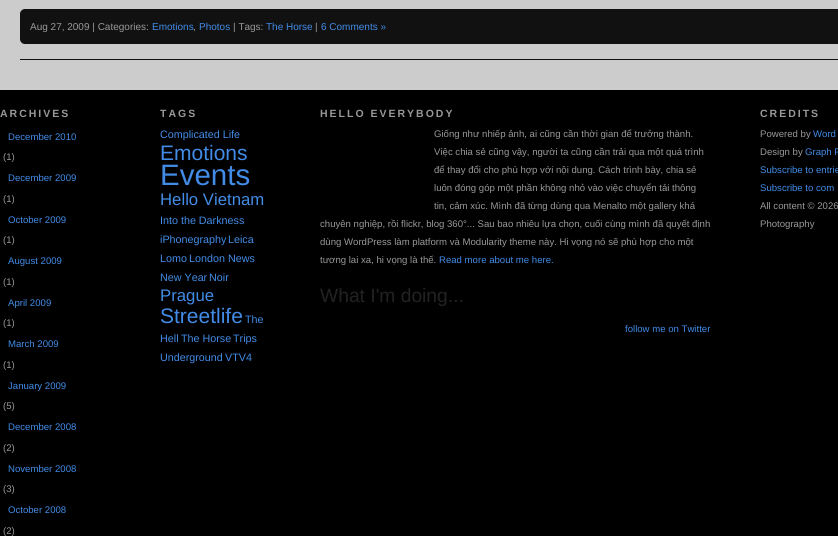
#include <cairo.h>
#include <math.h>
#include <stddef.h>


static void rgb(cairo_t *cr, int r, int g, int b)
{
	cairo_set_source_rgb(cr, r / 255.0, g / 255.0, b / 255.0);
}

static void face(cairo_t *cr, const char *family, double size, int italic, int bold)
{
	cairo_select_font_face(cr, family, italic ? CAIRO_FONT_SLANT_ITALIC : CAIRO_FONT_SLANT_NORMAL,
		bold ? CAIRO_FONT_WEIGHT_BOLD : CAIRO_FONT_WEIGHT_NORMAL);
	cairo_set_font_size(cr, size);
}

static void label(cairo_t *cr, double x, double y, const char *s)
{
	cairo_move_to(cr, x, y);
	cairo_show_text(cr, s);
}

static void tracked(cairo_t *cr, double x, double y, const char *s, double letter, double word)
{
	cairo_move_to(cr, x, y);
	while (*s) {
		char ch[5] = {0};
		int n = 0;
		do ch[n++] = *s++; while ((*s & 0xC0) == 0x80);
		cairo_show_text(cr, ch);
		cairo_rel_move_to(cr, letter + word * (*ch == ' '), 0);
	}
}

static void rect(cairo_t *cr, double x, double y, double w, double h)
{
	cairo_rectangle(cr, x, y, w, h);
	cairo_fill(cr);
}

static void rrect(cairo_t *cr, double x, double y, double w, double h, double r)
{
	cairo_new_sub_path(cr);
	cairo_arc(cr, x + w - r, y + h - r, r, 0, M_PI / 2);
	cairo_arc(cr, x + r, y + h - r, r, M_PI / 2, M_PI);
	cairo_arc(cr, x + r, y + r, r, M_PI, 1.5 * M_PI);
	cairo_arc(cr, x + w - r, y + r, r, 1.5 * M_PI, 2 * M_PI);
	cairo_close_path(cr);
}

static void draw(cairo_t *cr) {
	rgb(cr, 204, 204, 204);
	cairo_paint(cr);
	rgb(cr, 17, 17, 17);
	rrect(cr, 20, 9, 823, 35, 5);
	cairo_fill(cr);
	face(cr, "Liberation Sans", 10, 0, 0);
	rgb(cr, 153, 153, 153);
	label(cr, 30, 30, "Aug 27, 2009 | Categories:");
	rgb(cr, 66, 140, 231);
	label(cr, 152, 30, "Emotions");
	rgb(cr, 153, 153, 153);
	label(cr, 193, 30, ",");
	rgb(cr, 66, 140, 231);
	label(cr, 199, 30, "Photos");
	rgb(cr, 153, 153, 153);
	label(cr, 233, 30, "| Tags:");
	rgb(cr, 66, 140, 231);
	label(cr, 266, 30, "The Horse");
	rgb(cr, 153, 153, 153);
	label(cr, 315, 30, "|");
	rgb(cr, 66, 140, 231);
	label(cr, 321, 30, "6 Comments »");
	rgb(cr, 17, 17, 17);
	rect(cr, 20, 59, 818, 1);
	rgb(cr, 0, 0, 0);
	rect(cr, 0, 90, 838, 446);
	face(cr, "Liberation Sans", 10.5, 0, 1);
	rgb(cr, 153, 153, 153);
	tracked(cr, 0, 117, "ARCHIVES", 2, 0);
	face(cr, "Liberation Sans", 9.6, 0, 0);
	rgb(cr, 66, 140, 231);
	label(cr, 8, 140, "December 2010");
	rgb(cr, 153, 153, 153);
	label(cr, 3, 160, "(1)");
	rgb(cr, 66, 140, 231);
	label(cr, 8, 181, "December 2009");
	rgb(cr, 153, 153, 153);
	label(cr, 3, 202, "(1)");
	rgb(cr, 66, 140, 231);
	label(cr, 8, 223, "October 2009");
	rgb(cr, 153, 153, 153);
	label(cr, 3, 243, "(1)");
	rgb(cr, 66, 140, 231);
	label(cr, 8, 264, "August 2009");
	rgb(cr, 153, 153, 153);
	label(cr, 3, 285, "(1)");
	rgb(cr, 66, 140, 231);
	label(cr, 8, 306, "April 2009");
	rgb(cr, 153, 153, 153);
	label(cr, 3, 326, "(1)");
	rgb(cr, 66, 140, 231);
	label(cr, 8, 347, "March 2009");
	rgb(cr, 153, 153, 153);
	label(cr, 3, 368, "(1)");
	rgb(cr, 66, 140, 231);
	label(cr, 8, 389, "January 2009");
	rgb(cr, 153, 153, 153);
	label(cr, 3, 409, "(5)");
	rgb(cr, 66, 140, 231);
	label(cr, 8, 430, "December 2008");
	rgb(cr, 153, 153, 153);
	label(cr, 3, 451, "(2)");
	rgb(cr, 66, 140, 231);
	label(cr, 8, 472, "November 2008");
	rgb(cr, 153, 153, 153);
	label(cr, 3, 492, "(3)");
	rgb(cr, 66, 140, 231);
	label(cr, 8, 513, "October 2008");
	rgb(cr, 153, 153, 153);
	label(cr, 3, 534, "(2)");
	face(cr, "Liberation Sans", 10.5, 0, 1);
	tracked(cr, 160, 117, "TAGS", 2, 0);
	face(cr, "Liberation Sans", 10.75, 0, 0);
	rgb(cr, 66, 140, 231);
	label(cr, 160, 138, "Complicated Life");
	face(cr, "Liberation Sans", 21, 0, 0);
	label(cr, 160, 160, "Emotions");
	face(cr, "Liberation Sans", 29.5, 0, 0);
	label(cr, 160, 185, "Events");
	face(cr, "Liberation Sans", 16.75, 0, 0);
	label(cr, 160, 205, "Hello Vietnam");
	face(cr, "Liberation Sans", 10.75, 0, 0);
	label(cr, 160, 224, "Into the Darkness");
	label(cr, 160, 243, "iPhonegraphy");
	label(cr, 228, 243, "Leica");
	label(cr, 160, 262, "Lomo");
	label(cr, 189, 262, "London");
	label(cr, 228, 262, "News");
	label(cr, 160, 281, "New Year");
	label(cr, 209, 281, "Noir");
	face(cr, "Liberation Sans", 16.75, 0, 0);
	label(cr, 160, 301, "Prague");
	face(cr, "Liberation Sans", 21, 0, 0);
	label(cr, 160, 323, "Streetlife");
	face(cr, "Liberation Sans", 10.75, 0, 0);
	label(cr, 245, 323, "The");
	label(cr, 160, 342, "Hell");
	label(cr, 181, 342, "The Horse");
	label(cr, 233, 342, "Trips");
	label(cr, 160, 361, "Underground");
	label(cr, 225, 361, "VTV4");
	face(cr, "Liberation Sans", 10.5, 0, 1);
	rgb(cr, 153, 153, 153);
	tracked(cr, 320, 117, "HELLO EVERYBODY", 2, 0);
	face(cr, "Liberation Sans", 9.6, 0, 0);
	label(cr, 434, 137, "Giống như nhiếp ảnh, ai cũng cần thời gian để trưởng thành.");
	label(cr, 434, 155, "Việc chia sẻ cũng vậy, người ta cũng cần trải qua một quá trình");
	label(cr, 434, 173, "để thay đổi cho phù hợp với nội dung. Cách trình bày, chia sẻ");
	label(cr, 434, 191, "luôn đóng góp một phần không nhỏ vào việc chuyển tải thông");
	label(cr, 434, 209, "tin, cảm xúc. Mình đã từng dùng qua Menalto một gallery khá");
	label(cr, 320, 227, "chuyên nghiệp, rồi flickr, blog 360°... Sau bao nhiêu lựa chọn, cuối cùng mình đã quyết định");
	label(cr, 320, 245, "dùng WordPress làm platform và Modularity theme này. Hi vọng nó sẽ phù hợp cho một");
	label(cr, 320, 263, "tương lai xa, hi vọng là thế.");
	rgb(cr, 66, 140, 231);
	label(cr, 439, 263, "Read more about me here.");
	face(cr, "Liberation Sans", 19.25, 0, 0);
	rgb(cr, 34, 34, 34);
	label(cr, 320, 302, "What I'm doing...");
	face(cr, "Liberation Sans", 9.6, 0, 0);
	rgb(cr, 66, 140, 231);
	label(cr, 625, 332, "follow me on Twitter");
	face(cr, "Liberation Sans", 10.5, 0, 1);
	rgb(cr, 153, 153, 153);
	tracked(cr, 760, 117, "CREDITS", 2, 0);
	face(cr, "Liberation Sans", 9.6, 0, 0);
	label(cr, 760, 137, "Powered by");
	rgb(cr, 66, 140, 231);
	label(cr, 813, 137, "Word");
	rgb(cr, 153, 153, 153);
	label(cr, 760, 155, "Design by");
	rgb(cr, 66, 140, 231);
	label(cr, 805, 155, "Graph P");
	label(cr, 760, 173, "Subscribe to entrie");
	label(cr, 760, 191, "Subscribe to com");
	rgb(cr, 153, 153, 153);
	label(cr, 760, 209, "All content © 2026");
	label(cr, 760, 227, "Photography");
}

int main(void) {
	cairo_surface_t *surface = cairo_image_surface_create(CAIRO_FORMAT_RGB24, 838, 536);
	cairo_t *cr = cairo_create(surface);
	cairo_font_options_t *options = cairo_font_options_create();
	cairo_font_options_set_hint_metrics(options, CAIRO_HINT_METRICS_OFF);
	cairo_font_options_set_hint_style(options, CAIRO_HINT_STYLE_NONE);
	cairo_set_font_options(cr, options);
	cairo_set_miter_limit(cr, 4);
	draw(cr);
	cairo_surface_write_to_png(surface, "render.png");
	cairo_font_options_destroy(options);
	cairo_destroy(cr);
	cairo_surface_destroy(surface);
	return 0;
}
